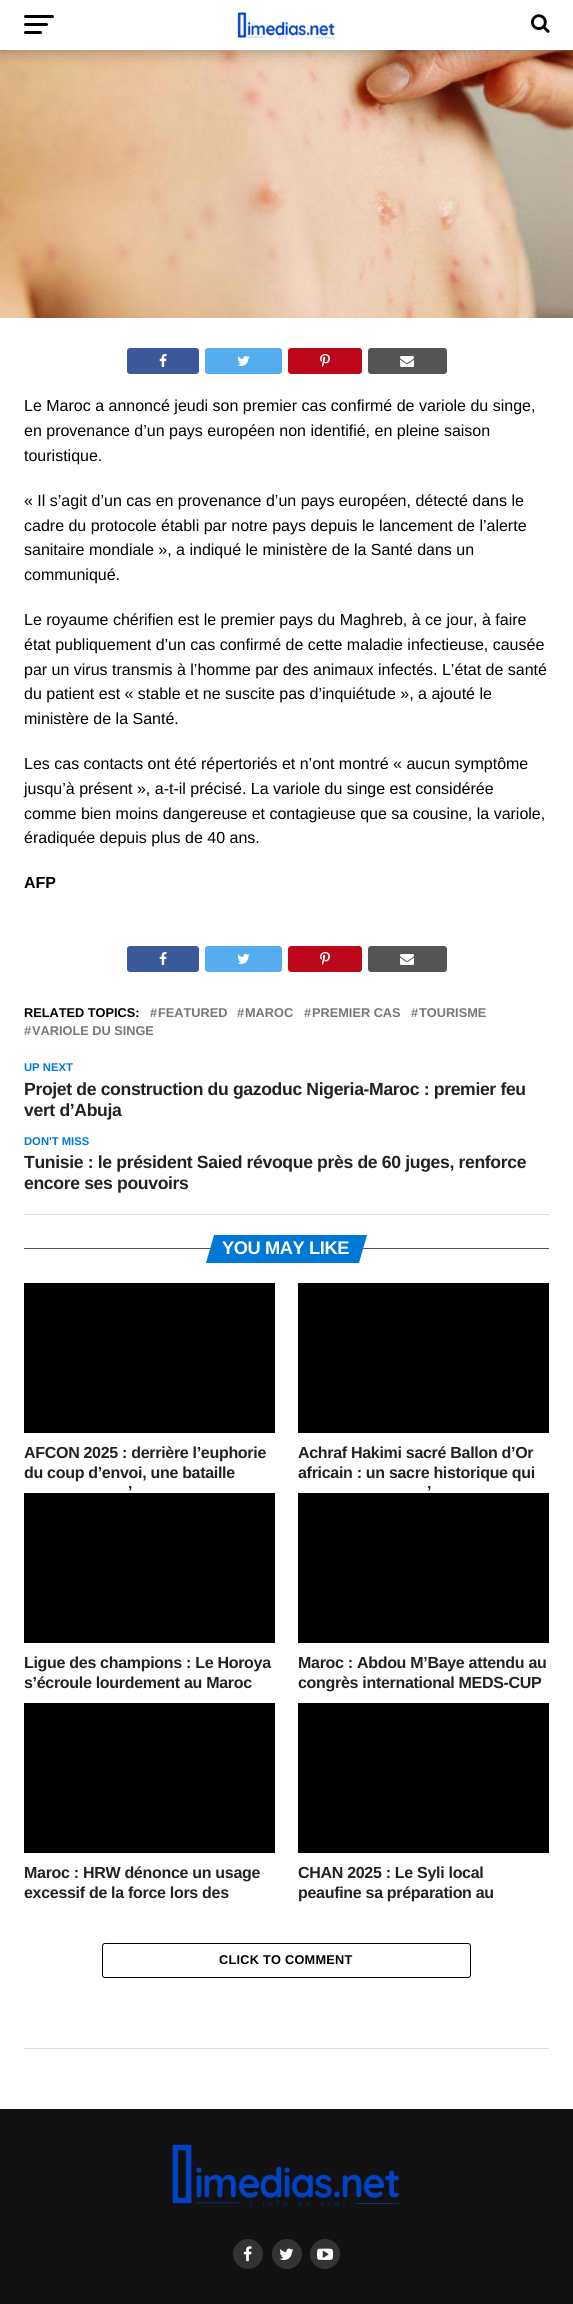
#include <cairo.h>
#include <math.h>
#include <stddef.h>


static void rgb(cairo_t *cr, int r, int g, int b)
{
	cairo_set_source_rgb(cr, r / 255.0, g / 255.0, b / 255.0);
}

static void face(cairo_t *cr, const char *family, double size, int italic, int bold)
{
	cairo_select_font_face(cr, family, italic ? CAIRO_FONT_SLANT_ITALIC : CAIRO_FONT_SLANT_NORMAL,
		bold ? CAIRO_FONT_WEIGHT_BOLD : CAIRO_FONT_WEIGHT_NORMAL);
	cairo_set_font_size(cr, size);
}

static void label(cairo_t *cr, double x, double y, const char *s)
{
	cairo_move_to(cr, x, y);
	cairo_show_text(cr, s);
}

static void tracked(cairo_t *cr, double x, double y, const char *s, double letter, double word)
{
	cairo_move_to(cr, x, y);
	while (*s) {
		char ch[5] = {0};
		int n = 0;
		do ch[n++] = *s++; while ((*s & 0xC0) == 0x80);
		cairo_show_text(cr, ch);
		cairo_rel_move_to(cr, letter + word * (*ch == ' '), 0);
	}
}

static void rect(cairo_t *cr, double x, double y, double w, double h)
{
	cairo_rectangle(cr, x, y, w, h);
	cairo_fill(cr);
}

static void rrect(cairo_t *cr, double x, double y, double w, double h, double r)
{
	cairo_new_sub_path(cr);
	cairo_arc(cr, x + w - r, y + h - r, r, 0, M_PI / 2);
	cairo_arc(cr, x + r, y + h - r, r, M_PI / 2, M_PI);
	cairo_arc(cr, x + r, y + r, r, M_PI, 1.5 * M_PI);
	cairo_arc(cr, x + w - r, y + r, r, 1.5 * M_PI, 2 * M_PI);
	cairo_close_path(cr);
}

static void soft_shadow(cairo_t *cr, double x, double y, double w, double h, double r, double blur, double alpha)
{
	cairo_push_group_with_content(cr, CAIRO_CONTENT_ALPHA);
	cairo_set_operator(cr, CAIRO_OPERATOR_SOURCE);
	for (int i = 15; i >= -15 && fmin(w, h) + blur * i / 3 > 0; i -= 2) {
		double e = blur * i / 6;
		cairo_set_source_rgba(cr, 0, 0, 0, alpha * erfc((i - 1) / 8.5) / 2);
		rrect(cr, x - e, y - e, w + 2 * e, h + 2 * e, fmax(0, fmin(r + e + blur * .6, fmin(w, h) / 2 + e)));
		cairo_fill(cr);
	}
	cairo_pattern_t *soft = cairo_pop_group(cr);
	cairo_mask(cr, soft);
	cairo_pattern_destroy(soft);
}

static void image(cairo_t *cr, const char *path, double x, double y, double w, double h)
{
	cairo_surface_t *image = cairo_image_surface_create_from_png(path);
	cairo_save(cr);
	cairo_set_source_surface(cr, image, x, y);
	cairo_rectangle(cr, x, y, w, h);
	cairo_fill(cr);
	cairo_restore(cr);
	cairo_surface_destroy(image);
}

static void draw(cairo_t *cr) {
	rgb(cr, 255, 255, 255);
	cairo_paint(cr);
	image(cr, "image2.png", 0, 50, 573, 268);
	rgb(cr, 0, 0, 0);
	soft_shadow(cr, 0, 1, 573, 50, 0, 8, 0.3);
	rgb(cr, 255, 255, 255);
	rect(cr, 0, 0, 573, 50);
	rgb(cr, 0, 0, 0);
	rrect(cr, 24, 15, 30, 3, 1.5);
	cairo_fill(cr);
	rrect(cr, 24, 23, 24, 3, 1.5);
	cairo_fill(cr);
	rrect(cr, 24, 31, 18, 3, 1.5);
	cairo_fill(cr);
	image(cr, "image0.png", 237, 12, 98, 27);
	image(cr, "image1.png", 531, 14, 19, 19);
	rgb(cr, 221, 221, 221);
	rect(cr, 24, 2048, 525, 1);
	rgb(cr, 59, 89, 152);
	rrect(cr, 127, 348, 72, 26, 3);
	cairo_fill(cr);
	image(cr, "image3.png", 159, 354, 8, 13);
	rgb(cr, 85, 172, 238);
	rrect(cr, 205, 348, 77, 26, 3);
	cairo_fill(cr);
	image(cr, "image4.png", 237, 356, 13, 10);
	rgb(cr, 189, 8, 28);
	rrect(cr, 288, 348, 74, 26, 3);
	cairo_fill(cr);
	image(cr, "image5.png", 320, 354, 10, 13);
	rgb(cr, 85, 85, 85);
	rrect(cr, 368, 348, 79, 26, 3);
	cairo_fill(cr);
	image(cr, "image6.png", 400, 356, 14, 11);
	face(cr, "Liberation Sans", 16, 0, 0);
	rgb(cr, 0, 0, 0);
	label(cr, 24, 411, "Le Maroc a annoncé jeudi son premier cas confirmé de variole du singe,");
	label(cr, 24, 436, "en provenance d’un pays européen non identifié, en pleine saison");
	label(cr, 24, 461, "touristique.");
	label(cr, 24, 506, "« Il s’agit d’un cas en provenance d’un pays européen, détecté dans le");
	label(cr, 24, 531, "cadre du protocole établi par notre pays depuis le lancement de l’alerte");
	label(cr, 24, 555, "sanitaire mondiale », a indiqué le ministère de la Santé dans un");
	label(cr, 24, 580, "communiqué.");
	label(cr, 24, 625, "Le royaume chérifien est le premier pays du Maghreb, à ce jour, à faire");
	label(cr, 24, 650, "état publiquement d’un cas confirmé de cette maladie infectieuse, causée");
	label(cr, 24, 675, "par un virus transmis à l’homme par des animaux infectés. L’état de santé");
	label(cr, 24, 699, "du patient est « stable et ne suscite pas d’inquiétude », a ajouté le");
	label(cr, 24, 724, "ministère de la Santé.");
	label(cr, 24, 769, "Les cas contacts ont été répertoriés et n’ont montré « aucun symptôme");
	label(cr, 24, 794, "jusqu’à présent », a-t-il précisé. La variole du singe est considérée");
	label(cr, 24, 819, "comme bien moins dangereuse et contagieuse que sa cousine, la variole,");
	label(cr, 24, 843, "éradiquée depuis plus de 40 ans.");
	face(cr, "Liberation Sans", 16, 0, 1);
	label(cr, 24, 888, "AFP");
	rgb(cr, 59, 89, 152);
	rrect(cr, 127, 946, 72, 26, 3);
	cairo_fill(cr);
	image(cr, "image3.png", 159, 952, 8, 13);
	rgb(cr, 85, 172, 238);
	rrect(cr, 205, 946, 77, 26, 3);
	cairo_fill(cr);
	image(cr, "image4.png", 237, 954, 13, 10);
	rgb(cr, 189, 8, 28);
	rrect(cr, 288, 946, 74, 26, 3);
	cairo_fill(cr);
	image(cr, "image5.png", 320, 952, 10, 13);
	rgb(cr, 85, 85, 85);
	rrect(cr, 368, 946, 79, 26, 3);
	cairo_fill(cr);
	image(cr, "image6.png", 400, 954, 14, 11);
	face(cr, "Liberation Sans", 12.75, 0, 1);
	rgb(cr, 0, 0, 0);
	label(cr, 24, 1017, "RELATED TOPICS:");
	rgb(cr, 119, 119, 119);
	label(cr, 150, 1017, "#");
	label(cr, 158, 1017, "FEATURED");
	label(cr, 237, 1017, "#");
	label(cr, 245, 1017, "MAROC");
	label(cr, 304, 1017, "#");
	label(cr, 312, 1017, "PREMIER CAS");
	label(cr, 411, 1017, "#");
	label(cr, 419, 1017, "TOURISME");
	label(cr, 24, 1035, "#");
	label(cr, 32, 1035, "VARIOLE DU SINGE");
	rgb(cr, 221, 221, 221);
	rect(cr, 24, 1214, 525, 1);
	face(cr, "Liberation Sans", 11.25, 0, 1);
	rgb(cr, 0, 121, 214);
	label(cr, 24, 1071, "UP NEXT");
	face(cr, "Liberation Sans", 17.6, 0, 1);
	rgb(cr, 34, 34, 34);
	tracked(cr, 24, 1095, "Projet de construction du gazoduc Nigeria-Maroc : premier feu", -0.35, 0);
	tracked(cr, 24, 1116, "vert d’Abuja", -0.35, 0);
	face(cr, "Liberation Sans", 11.25, 0, 1);
	rgb(cr, 0, 121, 214);
	label(cr, 24, 1145, "DON'T MISS");
	face(cr, "Liberation Sans", 17.6, 0, 1);
	rgb(cr, 34, 34, 34);
	tracked(cr, 24, 1168, "Tunisie : le président Saied révoque près de 60 juges, renforce", -0.35, 0);
	tracked(cr, 24, 1189, "encore ses pouvoirs", -0.35, 0);
	rgb(cr, 85, 85, 85);
	rect(cr, 24, 1248, 525, 1);
	rgb(cr, 0, 121, 214);
	cairo_new_path(cr);
	cairo_move_to(cr, 214, 1235);
	cairo_line_to(cr, 367, 1235);
	cairo_line_to(cr, 359, 1263);
	cairo_line_to(cr, 206, 1263);
	cairo_close_path(cr);
	cairo_fill(cr);
	face(cr, "Liberation Sans", 18.25, 0, 1);
	rgb(cr, 255, 255, 255);
	tracked(cr, 222, 1254, "YOU MAY LIKE", -0.4, 0);
	rgb(cr, 0, 0, 0);
	rect(cr, 24, 1283, 251, 150);
	face(cr, "Liberation Sans", 16, 0, 1);
	rgb(cr, 34, 34, 34);
	tracked(cr, 24, 1458, "AFCON 2025 : derrière l’euphorie", -0.3, 0);
	tracked(cr, 24, 1478, "du coup d’envoi, une bataille", -0.3, 0);
	tracked(cr, 128, 1497, "’", -0.3, 0);
	rgb(cr, 0, 0, 0);
	rect(cr, 298, 1283, 251, 150);
	rgb(cr, 34, 34, 34);
	tracked(cr, 298, 1458, "Achraf Hakimi sacré Ballon d’Or", -0.3, 0);
	tracked(cr, 298, 1478, "africain : un sacre historique qui", -0.3, 0);
	tracked(cr, 427, 1497, "’", -0.3, 0);
	rgb(cr, 0, 0, 0);
	rect(cr, 24, 1493, 251, 150);
	rgb(cr, 34, 34, 34);
	tracked(cr, 24, 1668, "Ligue des champions : Le Horoya", -0.3, 0);
	tracked(cr, 24, 1688, "s’écroule lourdement au Maroc", -0.3, 0);
	rgb(cr, 0, 0, 0);
	rect(cr, 298, 1493, 251, 150);
	rgb(cr, 34, 34, 34);
	tracked(cr, 298, 1668, "Maroc : Abdou M’Baye attendu au", -0.3, 0);
	tracked(cr, 298, 1688, "congrès international MEDS-CUP", -0.3, 0);
	rgb(cr, 0, 0, 0);
	rect(cr, 24, 1703, 251, 150);
	rgb(cr, 34, 34, 34);
	tracked(cr, 24, 1878, "Maroc : HRW dénonce un usage", -0.3, 0);
	tracked(cr, 24, 1898, "excessif de la force lors des", -0.3, 0);
	rgb(cr, 0, 0, 0);
	rect(cr, 298, 1703, 251, 150);
	rgb(cr, 34, 34, 34);
	tracked(cr, 298, 1878, "CHAN 2025 : Le Syli local", -0.3, 0);
	tracked(cr, 298, 1898, "peaufine sa préparation au", -0.3, 0);
	rrect(cr, 102.5, 1943.5, 368, 34, 2.5);
	rgb(cr, 0, 0, 0);
	cairo_set_line_width(cr, 1);
	cairo_stroke(cr);
	face(cr, "Liberation Sans", 12.75, 0, 1);
	tracked(cr, 219, 1964, "CLICK TO COMMENT", 0.25, 0);
	rgb(cr, 17, 17, 17);
	rect(cr, 0, 2109, 573, 195);
	image(cr, "image7.png", 172, 2144, 228, 63);
	rgb(cr, 51, 51, 51);
	cairo_arc(cr, 248, 2254, 15, 0, 2 * M_PI);
	cairo_fill(cr);
	image(cr, "image8.png", 243, 2246, 9, 16);
	cairo_arc(cr, 287, 2254, 15, 0, 2 * M_PI);
	cairo_fill(cr);
	image(cr, "image9.png", 279, 2248, 15, 12);
	cairo_arc(cr, 325, 2254, 15, 0, 2 * M_PI);
	cairo_fill(cr);
	image(cr, "image10.png", 317, 2248, 16, 12);
}

int main(void) {
	cairo_surface_t *surface = cairo_image_surface_create(CAIRO_FORMAT_RGB24, 573, 2304);
	cairo_t *cr = cairo_create(surface);
	cairo_font_options_t *options = cairo_font_options_create();
	cairo_font_options_set_hint_metrics(options, CAIRO_HINT_METRICS_OFF);
	cairo_font_options_set_hint_style(options, CAIRO_HINT_STYLE_NONE);
	cairo_set_font_options(cr, options);
	cairo_set_miter_limit(cr, 4);
	draw(cr);
	cairo_surface_write_to_png(surface, "render.png");
	cairo_font_options_destroy(options);
	cairo_destroy(cr);
	cairo_surface_destroy(surface);
	return 0;
}
